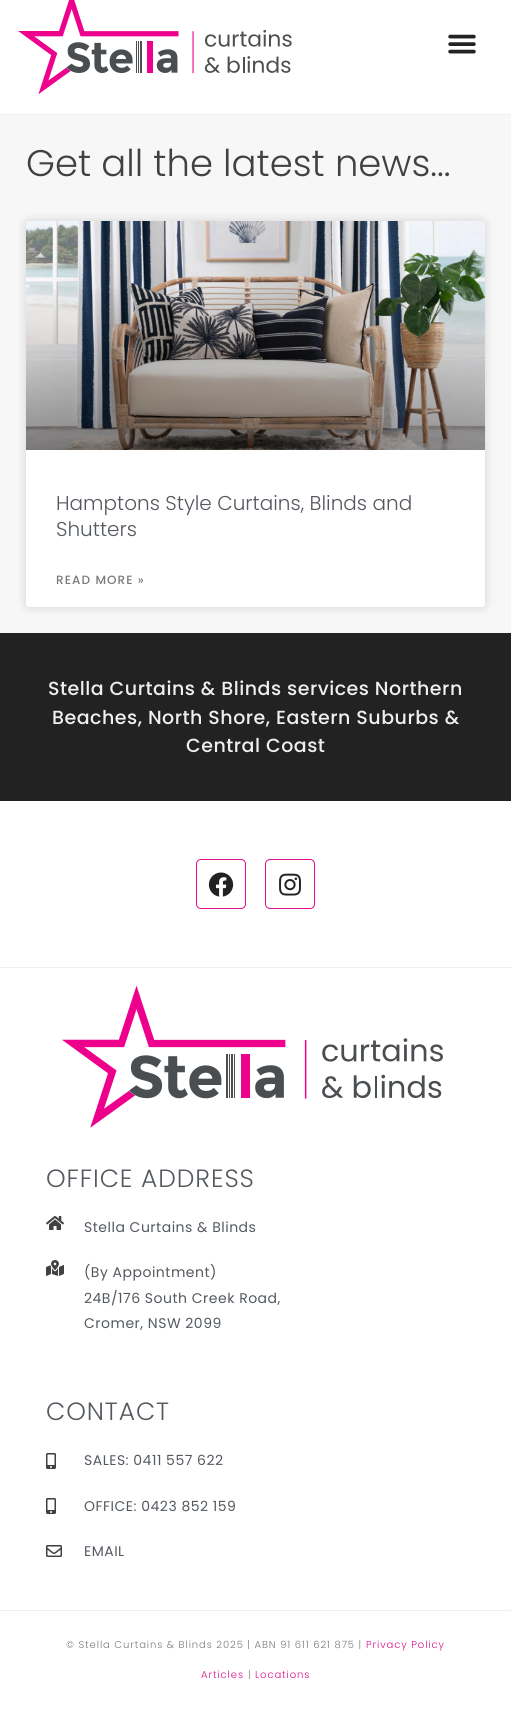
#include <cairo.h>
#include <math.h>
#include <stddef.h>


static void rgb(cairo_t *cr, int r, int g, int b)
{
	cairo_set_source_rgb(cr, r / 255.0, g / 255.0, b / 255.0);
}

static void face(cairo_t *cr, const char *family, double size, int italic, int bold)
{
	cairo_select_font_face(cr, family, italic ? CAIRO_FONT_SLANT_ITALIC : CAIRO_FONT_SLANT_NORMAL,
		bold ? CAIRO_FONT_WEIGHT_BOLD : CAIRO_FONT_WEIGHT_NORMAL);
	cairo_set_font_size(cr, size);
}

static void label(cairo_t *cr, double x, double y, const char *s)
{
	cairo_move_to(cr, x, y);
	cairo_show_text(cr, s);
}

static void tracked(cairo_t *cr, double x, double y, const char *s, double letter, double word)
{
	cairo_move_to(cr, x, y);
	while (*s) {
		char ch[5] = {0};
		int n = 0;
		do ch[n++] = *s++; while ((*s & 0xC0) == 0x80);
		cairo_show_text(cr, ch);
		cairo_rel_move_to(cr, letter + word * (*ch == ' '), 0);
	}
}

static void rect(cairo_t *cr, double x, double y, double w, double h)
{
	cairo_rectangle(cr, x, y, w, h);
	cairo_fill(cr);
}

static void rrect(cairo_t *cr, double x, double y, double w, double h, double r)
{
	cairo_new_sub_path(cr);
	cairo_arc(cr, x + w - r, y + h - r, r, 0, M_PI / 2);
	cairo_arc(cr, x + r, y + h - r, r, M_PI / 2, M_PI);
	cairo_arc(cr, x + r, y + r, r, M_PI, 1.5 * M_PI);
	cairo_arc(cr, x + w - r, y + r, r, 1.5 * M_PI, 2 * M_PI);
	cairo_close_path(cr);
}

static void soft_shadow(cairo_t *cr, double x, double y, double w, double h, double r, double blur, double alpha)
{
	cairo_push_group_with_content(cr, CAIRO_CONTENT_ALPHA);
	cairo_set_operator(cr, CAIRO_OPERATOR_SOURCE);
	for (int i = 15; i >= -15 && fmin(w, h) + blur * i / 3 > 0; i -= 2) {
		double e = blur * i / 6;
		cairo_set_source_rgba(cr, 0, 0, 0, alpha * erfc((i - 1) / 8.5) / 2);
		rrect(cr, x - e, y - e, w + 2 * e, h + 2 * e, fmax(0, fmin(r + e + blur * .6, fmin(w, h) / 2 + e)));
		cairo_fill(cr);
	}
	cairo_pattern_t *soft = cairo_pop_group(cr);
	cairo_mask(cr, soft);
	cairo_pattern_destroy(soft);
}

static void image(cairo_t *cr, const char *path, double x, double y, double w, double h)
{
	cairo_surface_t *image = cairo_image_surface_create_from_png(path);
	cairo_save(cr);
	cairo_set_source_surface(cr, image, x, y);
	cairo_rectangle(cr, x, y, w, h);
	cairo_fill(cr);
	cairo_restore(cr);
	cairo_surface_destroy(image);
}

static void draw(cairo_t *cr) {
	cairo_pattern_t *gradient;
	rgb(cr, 255, 255, 255);
	cairo_paint(cr);
	rgb(cr, 239, 239, 239);
	rect(cr, 0, 114, 511, 1);
	image(cr, "image0.png", 18, 0, 274, 95);
	image(cr, "image1.png", 448, 34, 28, 20);
	rgb(cr, 247, 247, 247);
	rect(cr, 0, 115, 511, 518);
	face(cr, "Poppins Light", 37, 0, 0);
	rgb(cr, 65, 65, 65);
	label(cr, 26, 176, "Get all the latest news...");
	rgb(cr, 0, 0, 0);
	soft_shadow(cr, 26, 221, 459, 386, 3, 5, 0.15);
	rgb(cr, 255, 255, 255);
	rrect(cr, 26, 221, 459, 386, 3);
	cairo_fill(cr);
	image(cr, "image2.png", 26, 221, 459, 229);
	gradient = cairo_pattern_create_linear(256, 450, 256, 221);
	cairo_pattern_add_color_stop_rgba(gradient, 0, 0, 0, 0, 0.35);
	cairo_pattern_add_color_stop_rgba(gradient, 0.75, 0, 0, 0, 0);
	cairo_set_source(cr, gradient);
	cairo_pattern_destroy(gradient);
	rect(cr, 26, 289, 459, 161);
	face(cr, "Poppins Light", 20, 0, 0);
	rgb(cr, 84, 89, 95);
	label(cr, 56, 510, "Hamptons Style Curtains, Blinds and");
	label(cr, 56, 536, "Shutters");
	face(cr, "Poppins Medium", 12, 0, 0);
	rgb(cr, 122, 122, 122);
	tracked(cr, 56, 584, "READ MORE »", 1.1, 0);
	rgb(cr, 34, 34, 34);
	rect(cr, 0, 633, 511, 168);
	face(cr, "Poppins Medium", 19, 0, 0);
	rgb(cr, 239, 239, 239);
	tracked(cr, 48, 695, "Stella Curtains & Blinds services Northern", 0.5, 0);
	tracked(cr, 52, 724, "Beaches, North Shore, Eastern Suburbs &", 0.5, 0);
	tracked(cr, 186, 752, "Central Coast", 0.5, 0);
	rrect(cr, 196.5, 859.5, 49, 49, 4.5);
	rgb(cr, 222, 16, 140);
	cairo_set_line_width(cr, 1);
	cairo_stroke(cr);
	image(cr, "image3.png", 208, 872, 26, 25);
	rrect(cr, 265.5, 859.5, 49, 49, 4.5);
	cairo_stroke(cr);
	image(cr, "image4.png", 279, 873, 22, 23);
	rgb(cr, 239, 239, 239);
	rect(cr, 0, 967, 511, 1);
	image(cr, "image5.png", 62, 985, 381, 143);
	face(cr, "Poppins Light", 25, 0, 0);
	rgb(cr, 84, 89, 95);
	tracked(cr, 46, 1187, "OFFICE ADDRESS", 0.9, 0);
	image(cr, "image6.png", 46, 1216, 18, 14);
	face(cr, "Poppins", 14, 0, 0);
	tracked(cr, 84, 1232, "Stella Curtains & Blinds", 0.5, 0);
	image(cr, "image7.png", 46, 1260, 18, 16);
	tracked(cr, 84, 1277, "(By Appointment)", 0.5, 0);
	tracked(cr, 84, 1303, "24B/176 South Creek Road,", 0.5, 0);
	tracked(cr, 84, 1328, "Cromer, NSW 2099", 0.5, 0);
	face(cr, "Poppins Light", 25, 0, 0);
	tracked(cr, 46, 1420, "CONTACT", 0.9, 0);
	image(cr, "image8.png", 46, 1453, 10, 16);
	face(cr, "Poppins", 14, 0, 0);
	tracked(cr, 84, 1465, "SALES: 0411 557 622", 0.5, 0);
	image(cr, "image8.png", 46, 1498, 10, 16);
	tracked(cr, 84, 1511, "OFFICE: 0423 852 159", 0.5, 0);
	image(cr, "image9.png", 46, 1545, 16, 12);
	tracked(cr, 84, 1556, "EMAIL", 0.5, 0);
	rgb(cr, 239, 239, 239);
	rect(cr, 0, 1610, 511, 1);
	face(cr, "Poppins Light", 10, 0, 0);
	rgb(cr, 122, 122, 122);
	tracked(cr, 66, 1648, "© Stella Curtains & Blinds 2025 | ABN 91 611 621 875 |", 0.9, 0);
	rgb(cr, 222, 16, 140);
	tracked(cr, 366, 1648, "Privacy Policy", 0.9, 0);
	tracked(cr, 201, 1678, "Articles", 0.9, 0);
	rgb(cr, 122, 122, 122);
	tracked(cr, 248, 1678, "|", 0.9, 0);
	rgb(cr, 222, 16, 140);
	tracked(cr, 255, 1678, "Locations", 0.9, 0);
}

int main(void) {
	cairo_surface_t *surface = cairo_image_surface_create(CAIRO_FORMAT_RGB24, 511, 1722);
	cairo_t *cr = cairo_create(surface);
	cairo_font_options_t *options = cairo_font_options_create();
	cairo_font_options_set_hint_metrics(options, CAIRO_HINT_METRICS_OFF);
	cairo_font_options_set_hint_style(options, CAIRO_HINT_STYLE_NONE);
	cairo_set_font_options(cr, options);
	cairo_set_miter_limit(cr, 4);
	draw(cr);
	cairo_surface_write_to_png(surface, "render.png");
	cairo_font_options_destroy(options);
	cairo_destroy(cr);
	cairo_surface_destroy(surface);
	return 0;
}
